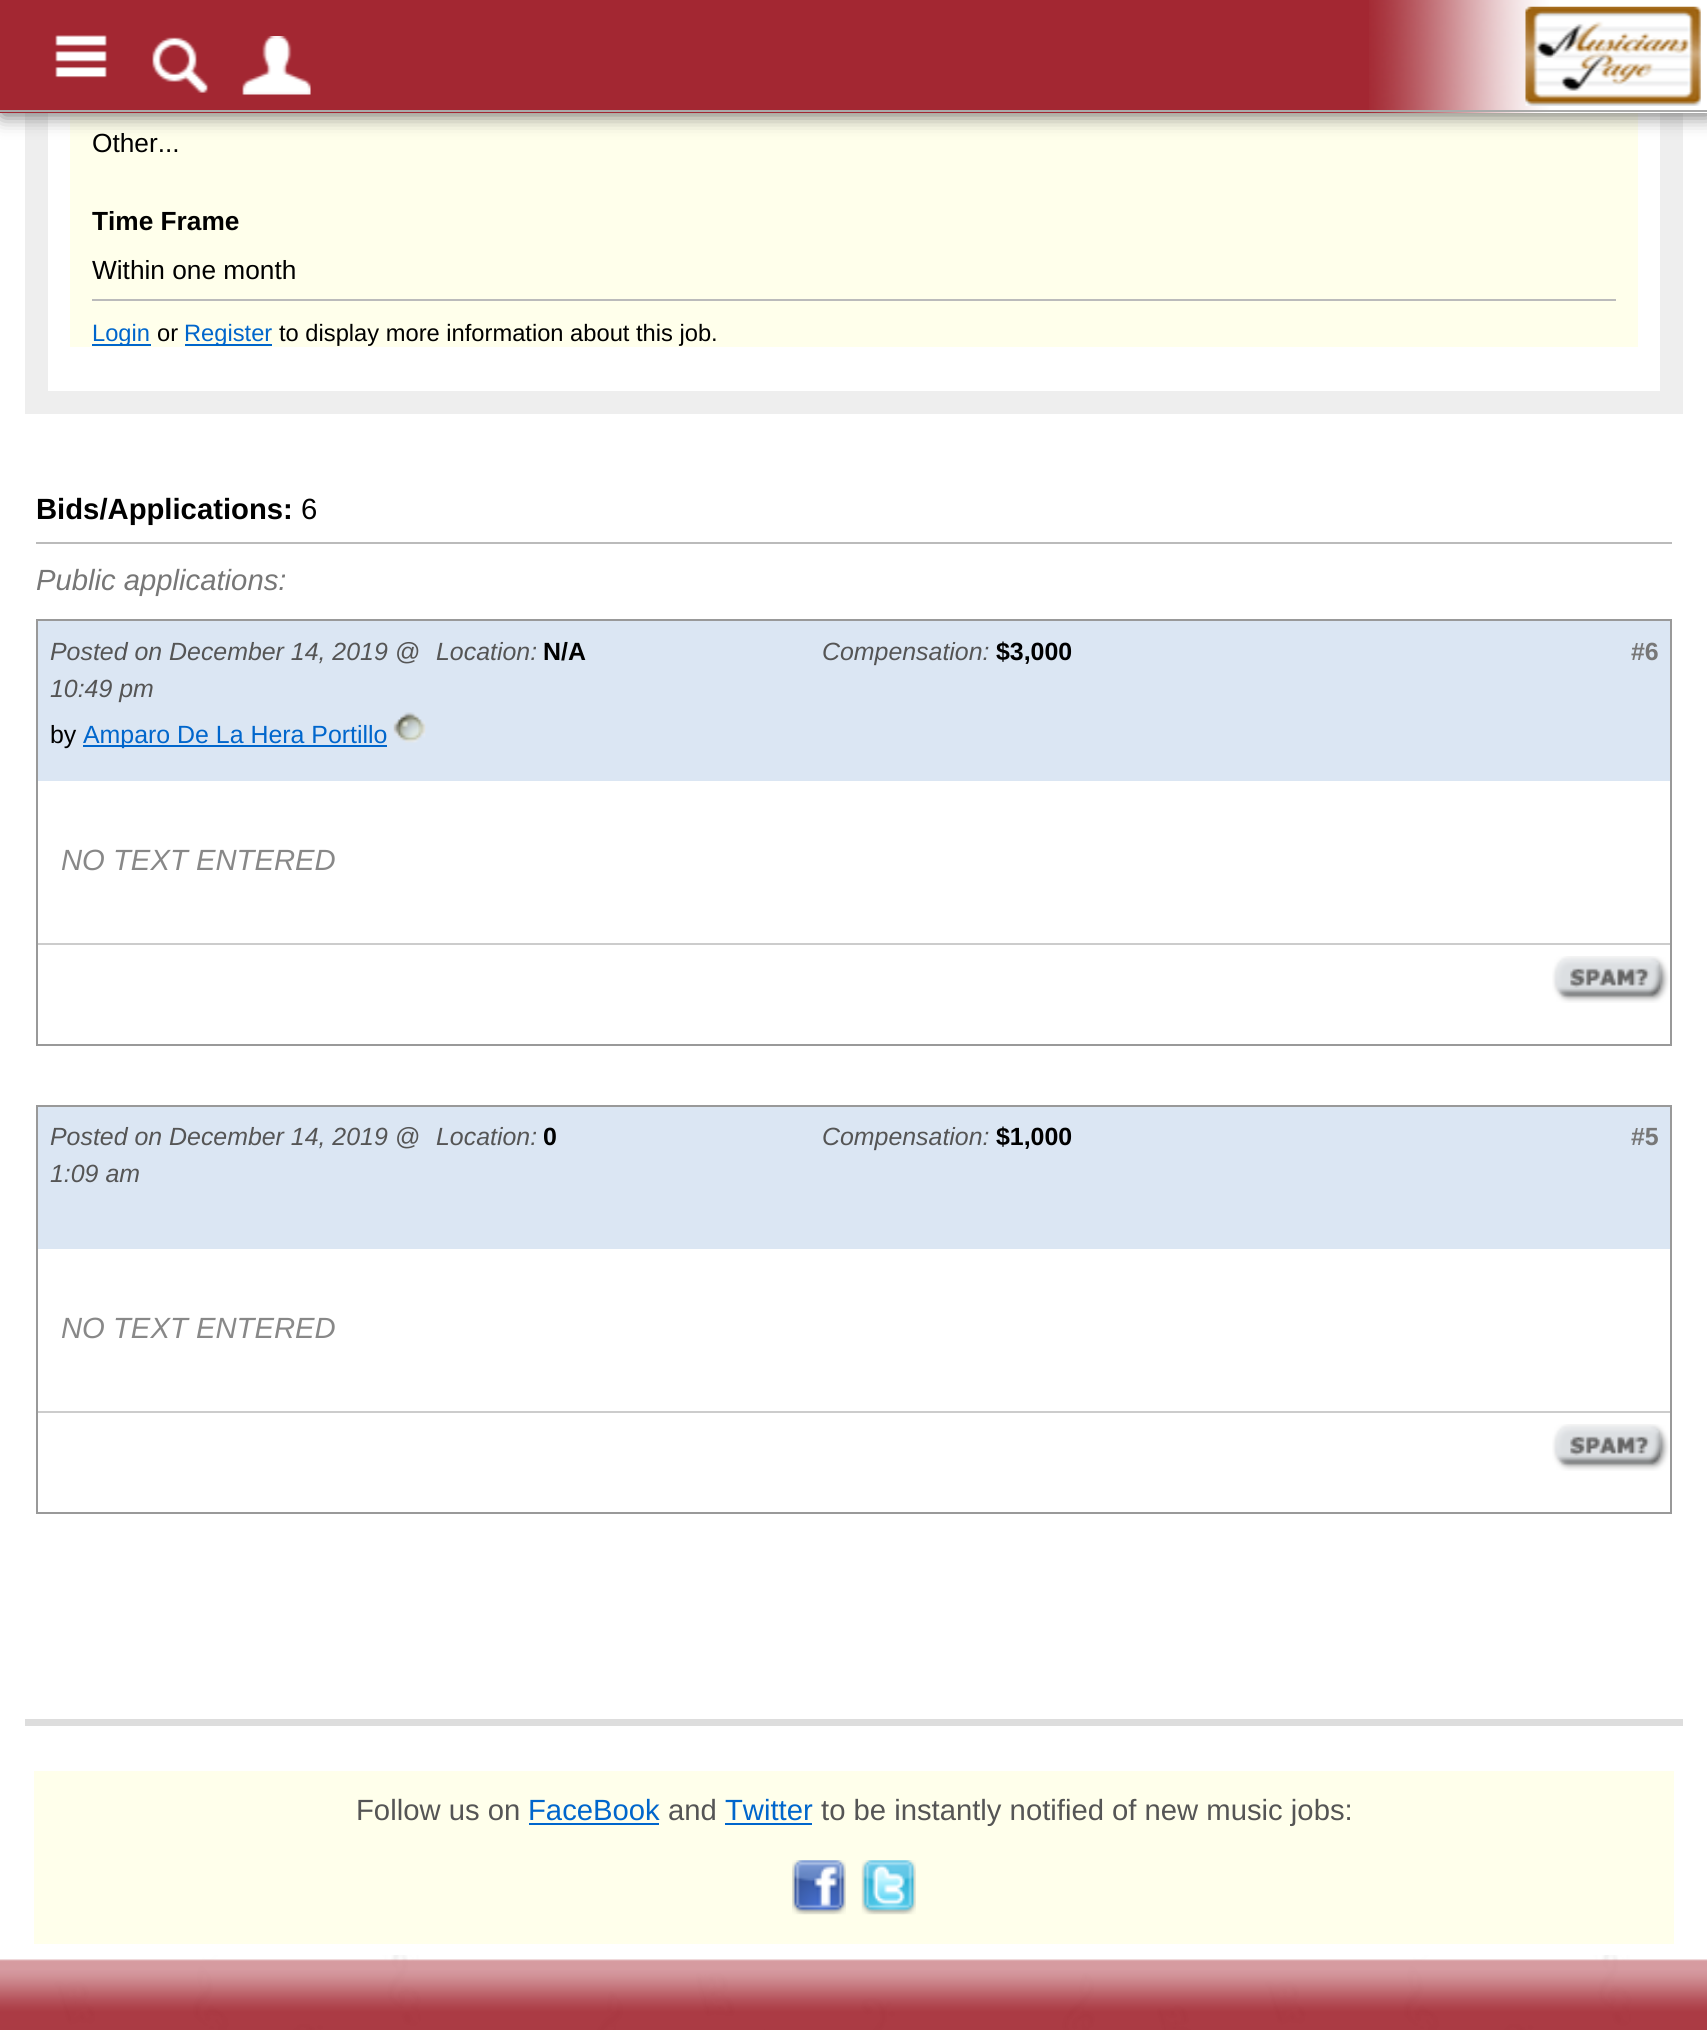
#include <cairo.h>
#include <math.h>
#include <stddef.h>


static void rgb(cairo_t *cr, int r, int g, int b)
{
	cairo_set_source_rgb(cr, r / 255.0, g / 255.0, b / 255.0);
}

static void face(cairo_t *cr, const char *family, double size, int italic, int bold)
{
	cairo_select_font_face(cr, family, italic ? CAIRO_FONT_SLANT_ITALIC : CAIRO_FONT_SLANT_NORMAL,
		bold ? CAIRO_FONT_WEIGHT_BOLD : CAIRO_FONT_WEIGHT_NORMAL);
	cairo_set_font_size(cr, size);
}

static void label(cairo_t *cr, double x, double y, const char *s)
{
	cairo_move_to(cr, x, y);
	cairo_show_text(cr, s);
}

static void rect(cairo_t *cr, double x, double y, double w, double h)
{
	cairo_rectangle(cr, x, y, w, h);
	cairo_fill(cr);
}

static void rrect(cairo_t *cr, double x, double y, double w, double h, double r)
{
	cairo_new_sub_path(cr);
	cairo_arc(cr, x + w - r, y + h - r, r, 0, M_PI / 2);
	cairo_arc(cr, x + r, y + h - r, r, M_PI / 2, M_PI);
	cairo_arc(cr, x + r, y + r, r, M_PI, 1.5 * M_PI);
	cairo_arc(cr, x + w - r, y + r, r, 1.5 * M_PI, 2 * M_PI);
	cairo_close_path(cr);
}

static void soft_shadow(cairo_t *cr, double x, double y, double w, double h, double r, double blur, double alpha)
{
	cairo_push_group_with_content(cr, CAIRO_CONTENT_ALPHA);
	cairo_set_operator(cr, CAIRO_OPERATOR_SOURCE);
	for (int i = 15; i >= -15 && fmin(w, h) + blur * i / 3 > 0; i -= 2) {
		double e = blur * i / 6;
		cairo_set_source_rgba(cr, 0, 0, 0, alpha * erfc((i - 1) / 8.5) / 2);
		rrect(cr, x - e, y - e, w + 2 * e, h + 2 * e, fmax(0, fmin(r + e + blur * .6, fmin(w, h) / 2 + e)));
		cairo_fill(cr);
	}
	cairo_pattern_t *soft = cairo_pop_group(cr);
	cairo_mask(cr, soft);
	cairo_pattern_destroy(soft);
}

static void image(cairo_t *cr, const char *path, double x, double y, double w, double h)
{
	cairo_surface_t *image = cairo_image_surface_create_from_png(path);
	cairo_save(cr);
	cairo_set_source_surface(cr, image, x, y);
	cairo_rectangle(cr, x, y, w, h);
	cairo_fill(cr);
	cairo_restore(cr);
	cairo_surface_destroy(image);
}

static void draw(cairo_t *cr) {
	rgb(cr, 255, 255, 255);
	cairo_paint(cr);
	cairo_rectangle(cr, 36.5, -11.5, 1635, 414);
	rgb(cr, 238, 238, 238);
	cairo_set_line_width(cr, 23);
	cairo_stroke(cr);
	rgb(cr, 255, 255, 235);
	rect(cr, 70, 113, 1568, 234);
	rgb(cr, 102, 102, 102);
	soft_shadow(cr, 2, 2, 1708, 113, 0, 10, 1);
	rgb(cr, 163, 39, 50);
	rect(cr, 0, 0, 1369, 113);
	image(cr, "image0.png", 1369, 0, 338, 113);
	rgb(cr, 170, 170, 170);
	rect(cr, 0, 110, 1707, 2);
	image(cr, "image1.png", 55, 35, 52, 43);
	image(cr, "image2.png", 152, 37, 57, 56);
	image(cr, "image3.png", 242, 36, 69, 59);
	image(cr, "image4.png", 1525, 6, 176, 100);
	rgb(cr, 221, 221, 221);
	rect(cr, 25, 1719, 1658, 7);
	face(cr, "Liberation Sans", 26.25, 0, 0);
	rgb(cr, 0, 0, 0);
	label(cr, 92, 152, "Other...");
	face(cr, "Liberation Sans", 26.25, 0, 1);
	label(cr, 92, 230, "Time Frame");
	face(cr, "Liberation Sans", 26.25, 0, 0);
	label(cr, 92, 279, "Within one month");
	rgb(cr, 187, 187, 187);
	rect(cr, 92, 299, 1524, 2);
	rgb(cr, 0, 102, 204);
	rect(cr, 92, 344, 59, 2);
	face(cr, "Liberation Sans", 23.7, 0, 0);
	label(cr, 92, 341, "Login");
	rgb(cr, 0, 0, 0);
	label(cr, 157, 341, "or");
	rgb(cr, 0, 102, 204);
	rect(cr, 185, 344, 87, 2);
	label(cr, 184, 341, "Register");
	rgb(cr, 0, 0, 0);
	label(cr, 279, 341, "to display more information about this job.");
	face(cr, "Liberation Sans", 29.25, 0, 1);
	label(cr, 36, 519, "Bids/Applications:");
	face(cr, "Liberation Sans", 29.25, 0, 0);
	label(cr, 301, 519, "6");
	rgb(cr, 187, 187, 187);
	rect(cr, 36, 542, 1636, 2);
	face(cr, "Liberation Sans", 29.25, 1, 0);
	rgb(cr, 119, 119, 119);
	label(cr, 36, 590, "Public applications:");
	cairo_rectangle(cr, 37, 620, 1634, 425);
	rgb(cr, 153, 153, 153);
	cairo_set_line_width(cr, 2);
	cairo_stroke(cr);
	rgb(cr, 219, 230, 243);
	rect(cr, 38, 621, 1632, 160);
	face(cr, "Liberation Sans", 24.9, 1, 0);
	rgb(cr, 85, 85, 85);
	label(cr, 50, 660, "Posted on December 14, 2019 @");
	label(cr, 50, 697, "10:49 pm");
	label(cr, 436, 660, "Location:");
	face(cr, "Liberation Sans", 24.9, 0, 1);
	rgb(cr, 0, 0, 0);
	label(cr, 543, 660, "N/A");
	face(cr, "Liberation Sans", 24.9, 1, 0);
	rgb(cr, 85, 85, 85);
	label(cr, 822, 660, "Compensation:");
	face(cr, "Liberation Sans", 24.9, 0, 1);
	rgb(cr, 0, 0, 0);
	label(cr, 996, 660, "$3,000");
	rgb(cr, 119, 119, 119);
	label(cr, 1631, 660, "#6");
	face(cr, "Liberation Sans", 24.9, 0, 0);
	rgb(cr, 0, 0, 0);
	label(cr, 50, 743, "by");
	rgb(cr, 0, 102, 204);
	rect(cr, 83, 745, 304, 2);
	label(cr, 83, 743, "Amparo De La Hera Portillo");
	image(cr, "image5.png", 393, 712, 33, 31);
	face(cr, "Liberation Sans", 29.25, 1, 0);
	rgb(cr, 136, 136, 136);
	label(cr, 61, 870, "NO TEXT ENTERED");
	rgb(cr, 204, 204, 204);
	rect(cr, 38, 943, 1632, 2);
	image(cr, "image6.png", 1552, 956, 118, 47);
	cairo_rectangle(cr, 37, 1106, 1634, 407);
	rgb(cr, 153, 153, 153);
	cairo_stroke(cr);
	rgb(cr, 219, 230, 243);
	rect(cr, 38, 1107, 1632, 142);
	face(cr, "Liberation Sans", 24.9, 1, 0);
	rgb(cr, 85, 85, 85);
	label(cr, 50, 1145, "Posted on December 14, 2019 @");
	label(cr, 50, 1182, "1:09 am");
	label(cr, 436, 1145, "Location:");
	face(cr, "Liberation Sans", 24.9, 0, 1);
	rgb(cr, 0, 0, 0);
	label(cr, 543, 1145, "0");
	face(cr, "Liberation Sans", 24.9, 1, 0);
	rgb(cr, 85, 85, 85);
	label(cr, 822, 1145, "Compensation:");
	face(cr, "Liberation Sans", 24.9, 0, 1);
	rgb(cr, 0, 0, 0);
	label(cr, 996, 1145, "$1,000");
	rgb(cr, 119, 119, 119);
	label(cr, 1631, 1145, "#5");
	face(cr, "Liberation Sans", 29.25, 1, 0);
	rgb(cr, 136, 136, 136);
	label(cr, 61, 1338, "NO TEXT ENTERED");
	rgb(cr, 204, 204, 204);
	rect(cr, 38, 1411, 1632, 2);
	image(cr, "image6.png", 1552, 1424, 118, 47);
	rgb(cr, 255, 255, 235);
	rect(cr, 34, 1771, 1640, 173);
	face(cr, "Liberation Sans", 29.25, 0, 0);
	rgb(cr, 85, 85, 85);
	label(cr, 356, 1820, "Follow us on");
	rgb(cr, 0, 102, 204);
	label(cr, 528, 1820, "FaceBook");
	rect(cr, 529, 1823, 130, 2);
	rgb(cr, 85, 85, 85);
	label(cr, 668, 1820, "and");
	rgb(cr, 0, 102, 204);
	label(cr, 725, 1820, "Twitter");
	rect(cr, 725, 1823, 87, 2);
	rgb(cr, 85, 85, 85);
	label(cr, 821, 1820, "to be instantly notified of new music jobs:");
	image(cr, "image7.png", 792, 1860, 54, 55);
	image(cr, "image8.png", 861, 1860, 55, 55);
	image(cr, "image9.png", 54, 1955, 1578, 75);
	image(cr, "image10.png", 0, 1959, 1707, 71);
}

int main(void) {
	cairo_surface_t *surface = cairo_image_surface_create(CAIRO_FORMAT_RGB24, 1707, 2030);
	cairo_t *cr = cairo_create(surface);
	cairo_font_options_t *options = cairo_font_options_create();
	cairo_font_options_set_hint_metrics(options, CAIRO_HINT_METRICS_OFF);
	cairo_font_options_set_hint_style(options, CAIRO_HINT_STYLE_NONE);
	cairo_set_font_options(cr, options);
	cairo_set_miter_limit(cr, 4);
	draw(cr);
	cairo_surface_write_to_png(surface, "render.png");
	cairo_font_options_destroy(options);
	cairo_destroy(cr);
	cairo_surface_destroy(surface);
	return 0;
}
